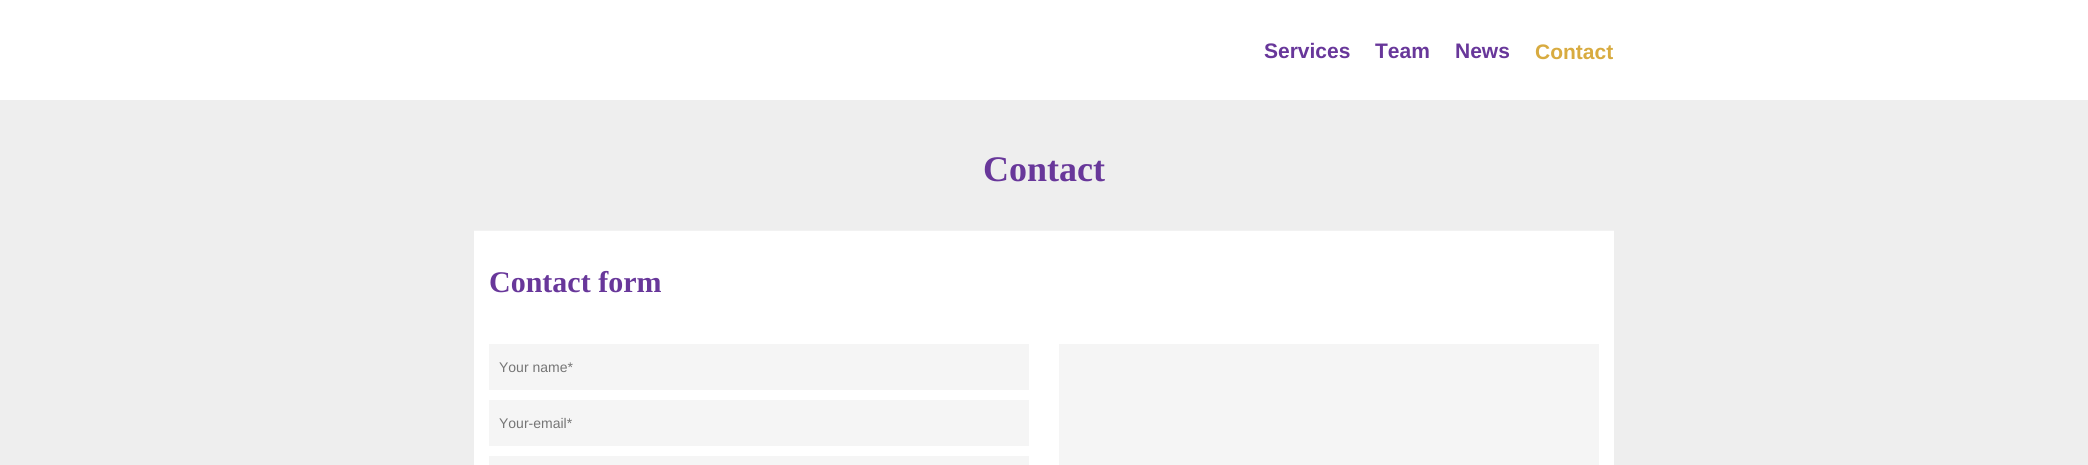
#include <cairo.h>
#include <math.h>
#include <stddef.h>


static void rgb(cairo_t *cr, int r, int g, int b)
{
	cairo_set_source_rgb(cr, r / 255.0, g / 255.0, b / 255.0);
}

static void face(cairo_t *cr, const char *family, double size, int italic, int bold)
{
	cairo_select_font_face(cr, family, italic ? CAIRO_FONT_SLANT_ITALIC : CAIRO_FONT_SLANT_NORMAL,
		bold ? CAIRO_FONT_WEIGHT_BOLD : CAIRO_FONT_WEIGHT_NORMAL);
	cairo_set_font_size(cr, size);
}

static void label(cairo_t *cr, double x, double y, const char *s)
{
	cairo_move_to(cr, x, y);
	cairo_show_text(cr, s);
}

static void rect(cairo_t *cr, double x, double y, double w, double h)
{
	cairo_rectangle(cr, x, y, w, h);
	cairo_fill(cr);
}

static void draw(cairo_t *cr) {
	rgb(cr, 238, 238, 238);
	cairo_paint(cr);
	rgb(cr, 255, 255, 255);
	rect(cr, 0, 0, 2088, 100);
	face(cr, "Liberation Sans", 21, 0, 1);
	rgb(cr, 104, 55, 154);
	label(cr, 1264, 58, "Services");
	label(cr, 1375, 58, "Team");
	label(cr, 1455, 58, "News");
	rgb(cr, 216, 171, 64);
	label(cr, 1535, 59, "Contact");
	face(cr, "Liberation Serif", 36, 0, 1);
	rgb(cr, 104, 55, 154);
	label(cr, 983, 181, "Contact");
	rgb(cr, 255, 255, 255);
	rect(cr, 474, 231, 1140, 234);
	rgb(cr, 242, 242, 242);
	rect(cr, 474, 230, 1140, 1);
	face(cr, "Liberation Serif", 30, 0, 1);
	rgb(cr, 104, 55, 154);
	label(cr, 489, 292, "Contact form");
	rgb(cr, 245, 245, 245);
	rect(cr, 489, 344, 540, 46);
	face(cr, "Liberation Sans", 14, 0, 0);
	rgb(cr, 117, 117, 117);
	label(cr, 499, 372, "Your name*");
	rgb(cr, 245, 245, 245);
	rect(cr, 489, 400, 540, 46);
	rgb(cr, 117, 117, 117);
	label(cr, 499, 428, "Your-email*");
	rgb(cr, 245, 245, 245);
	rect(cr, 489, 456, 540, 9);
	rect(cr, 1059, 344, 540, 121);
}

int main(void) {
	cairo_surface_t *surface = cairo_image_surface_create(CAIRO_FORMAT_RGB24, 2088, 465);
	cairo_t *cr = cairo_create(surface);
	cairo_font_options_t *options = cairo_font_options_create();
	cairo_font_options_set_hint_metrics(options, CAIRO_HINT_METRICS_OFF);
	cairo_font_options_set_hint_style(options, CAIRO_HINT_STYLE_NONE);
	cairo_set_font_options(cr, options);
	cairo_set_miter_limit(cr, 4);
	draw(cr);
	cairo_surface_write_to_png(surface, "render.png");
	cairo_font_options_destroy(options);
	cairo_destroy(cr);
	cairo_surface_destroy(surface);
	return 0;
}
